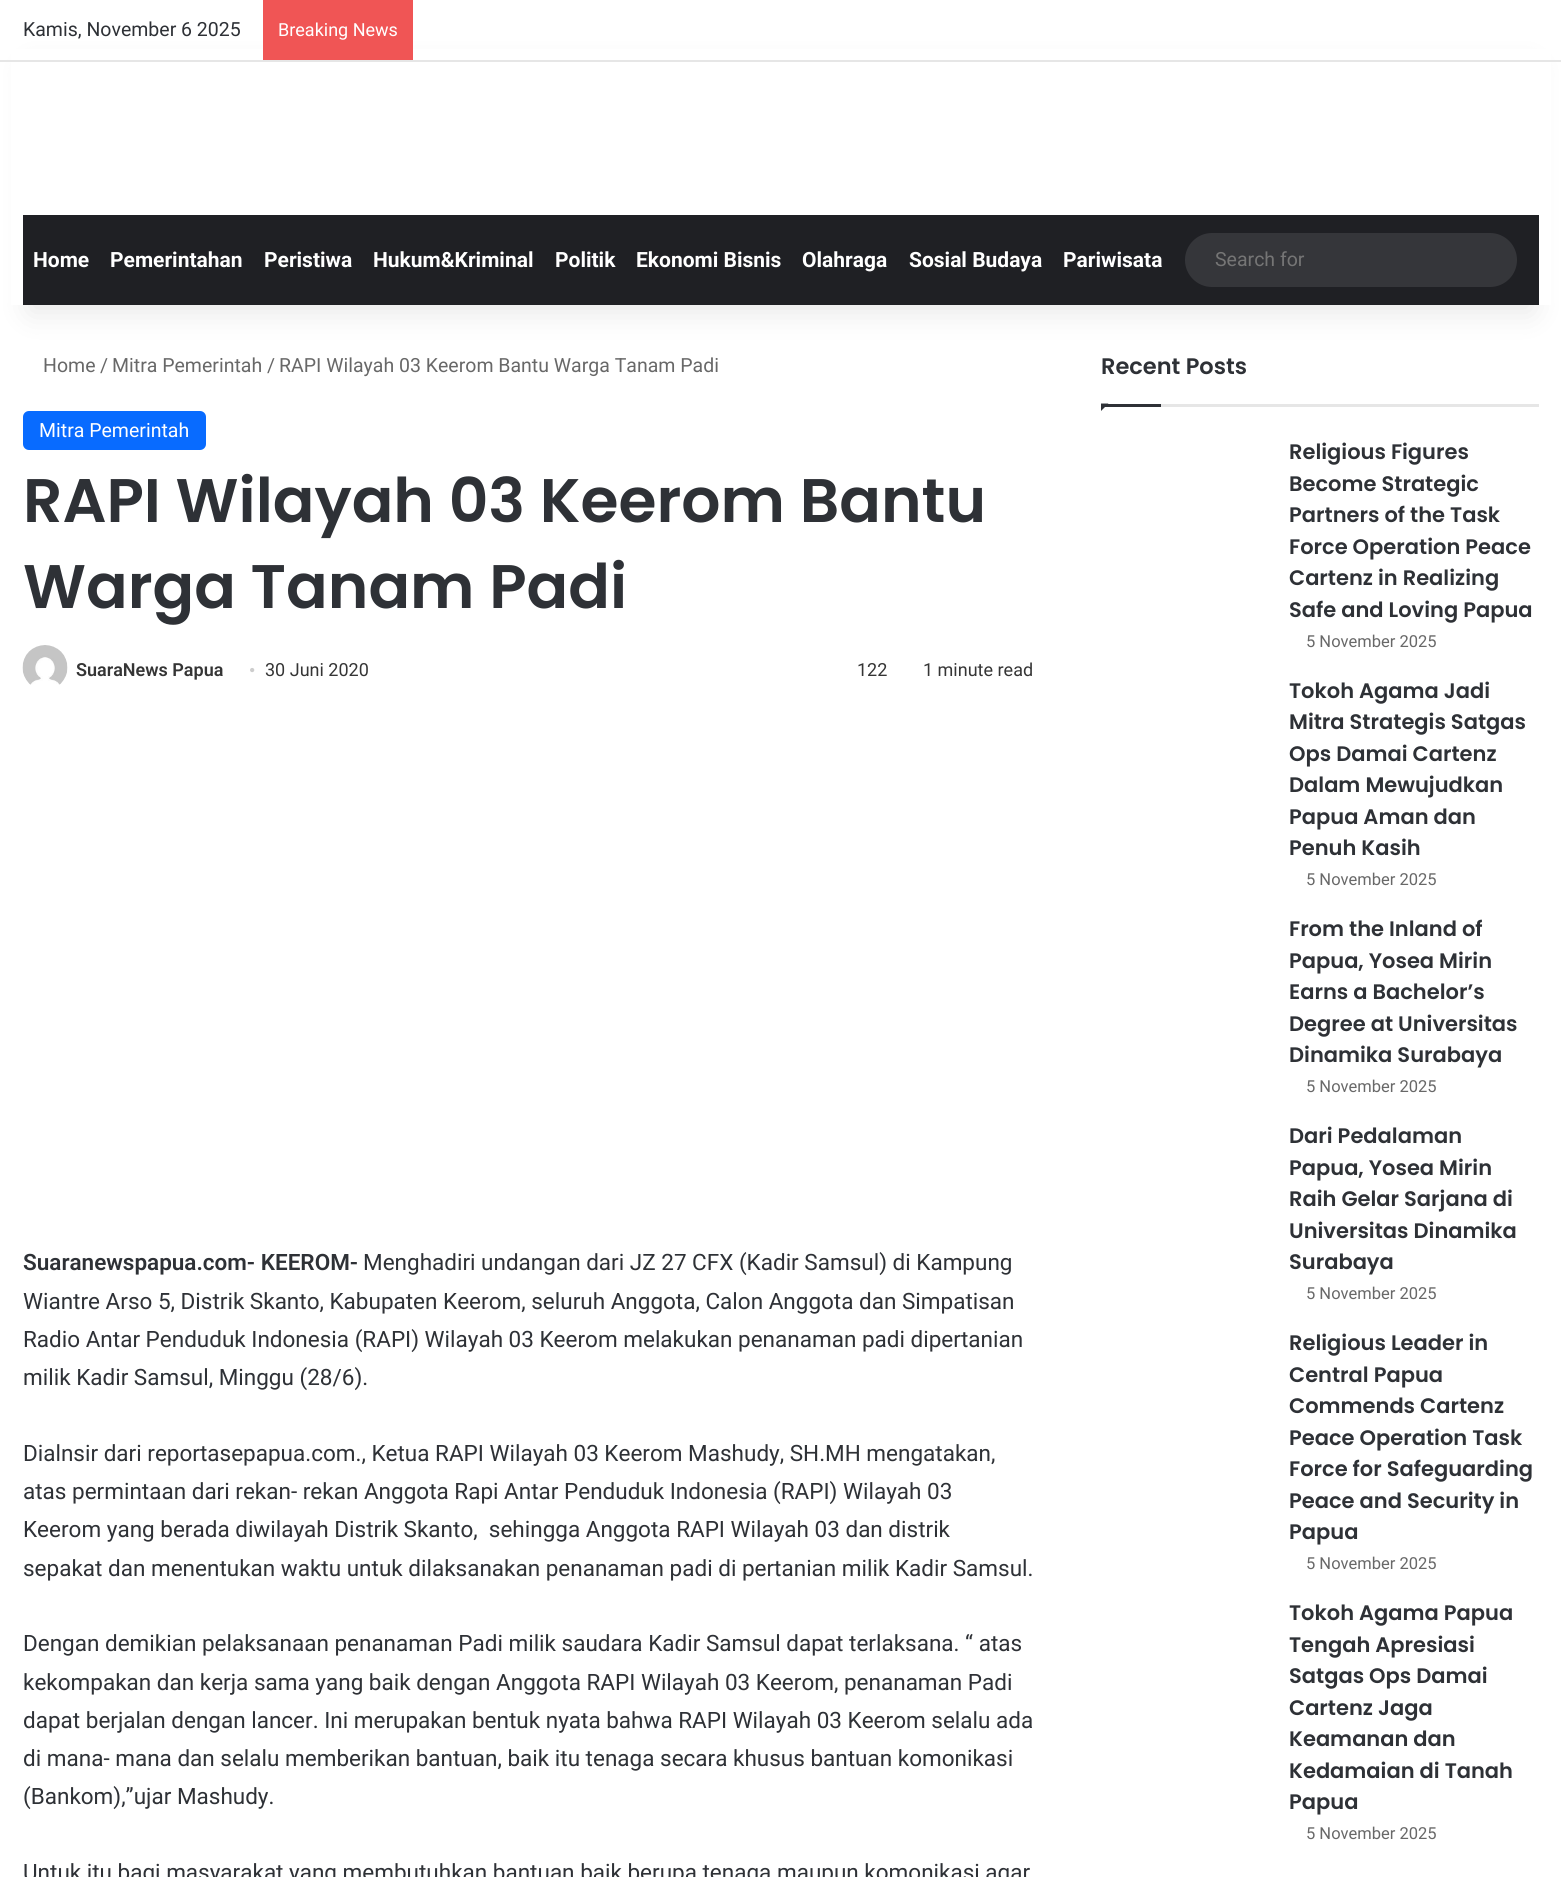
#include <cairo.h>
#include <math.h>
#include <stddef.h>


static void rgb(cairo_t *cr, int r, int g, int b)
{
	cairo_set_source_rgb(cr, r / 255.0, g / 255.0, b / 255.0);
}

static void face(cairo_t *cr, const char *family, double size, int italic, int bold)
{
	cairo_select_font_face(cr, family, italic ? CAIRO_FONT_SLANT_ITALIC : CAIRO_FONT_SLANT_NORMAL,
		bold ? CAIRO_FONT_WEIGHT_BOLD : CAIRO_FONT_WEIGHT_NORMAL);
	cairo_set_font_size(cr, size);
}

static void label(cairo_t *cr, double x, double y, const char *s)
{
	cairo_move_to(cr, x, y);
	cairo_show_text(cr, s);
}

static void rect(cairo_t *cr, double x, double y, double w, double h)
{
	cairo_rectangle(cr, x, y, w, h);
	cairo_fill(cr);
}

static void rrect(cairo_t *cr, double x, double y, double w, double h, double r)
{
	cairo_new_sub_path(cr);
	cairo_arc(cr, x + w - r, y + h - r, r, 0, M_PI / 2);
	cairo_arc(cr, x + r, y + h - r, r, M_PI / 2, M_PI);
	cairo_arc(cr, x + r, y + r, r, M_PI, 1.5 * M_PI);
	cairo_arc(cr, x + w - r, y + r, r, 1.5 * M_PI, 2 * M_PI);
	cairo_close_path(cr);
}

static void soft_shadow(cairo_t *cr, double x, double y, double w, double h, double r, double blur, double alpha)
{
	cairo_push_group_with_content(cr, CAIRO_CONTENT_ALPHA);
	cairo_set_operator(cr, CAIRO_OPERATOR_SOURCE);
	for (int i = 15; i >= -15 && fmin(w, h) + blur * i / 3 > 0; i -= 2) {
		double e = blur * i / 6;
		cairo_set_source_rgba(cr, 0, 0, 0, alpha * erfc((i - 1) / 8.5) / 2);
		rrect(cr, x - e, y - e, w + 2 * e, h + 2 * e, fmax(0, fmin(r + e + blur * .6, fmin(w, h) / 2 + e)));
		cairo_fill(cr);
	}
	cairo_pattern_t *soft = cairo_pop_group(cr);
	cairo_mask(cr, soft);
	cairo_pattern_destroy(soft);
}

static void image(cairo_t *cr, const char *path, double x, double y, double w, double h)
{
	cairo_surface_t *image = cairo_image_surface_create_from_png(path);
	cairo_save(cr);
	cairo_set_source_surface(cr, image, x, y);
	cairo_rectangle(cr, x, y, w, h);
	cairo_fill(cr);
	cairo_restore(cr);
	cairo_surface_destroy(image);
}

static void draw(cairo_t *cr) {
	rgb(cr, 255, 255, 255);
	cairo_paint(cr);
	rgb(cr, 0, 0, 0);
	soft_shadow(cr, 30, 68, 1502, 244, 0, 15, 0.1);
	rgb(cr, 255, 255, 255);
	rect(cr, 11, 49, 1540, 256);
	rgb(cr, 230, 230, 230);
	rect(cr, 0, 60, 1561, 2);
	face(cr, "Roboto", 19.5, 0, 0);
	rgb(cr, 46, 49, 54);
	label(cr, 23, 36, "Kamis, November 6 2025");
	rgb(cr, 240, 85, 85);
	rect(cr, 263, 0, 150, 60);
	face(cr, "Roboto", 18, 0, 0);
	rgb(cr, 255, 255, 255);
	label(cr, 278, 36, "Breaking News");
	rgb(cr, 31, 32, 36);
	rect(cr, 23, 215, 1516, 90);
	face(cr, "Roboto", 21, 0, 1);
	rgb(cr, 255, 255, 255);
	label(cr, 33, 267, "Home");
	label(cr, 110, 267, "Pemerintahan");
	label(cr, 264, 267, "Peristiwa");
	label(cr, 373, 267, "Hukum&Kriminal");
	label(cr, 555, 267, "Politik");
	label(cr, 636, 267, "Ekonomi Bisnis");
	label(cr, 802, 267, "Olahraga");
	label(cr, 909, 267, "Sosial Budaya");
	label(cr, 1063, 267, "Pariwisata");
	rgb(cr, 53, 54, 58);
	rrect(cr, 1185, 233, 332, 54, 27);
	cairo_fill(cr);
	face(cr, "Roboto", 19.5, 0, 0);
	rgb(cr, 117, 117, 117);
	label(cr, 1215, 266, "Search for");
	rgb(cr, 104, 104, 104);
	label(cr, 43, 372, "Home");
	label(cr, 100, 372, "/");
	label(cr, 112, 372, "Mitra Pemerintah");
	label(cr, 267, 372, "/");
	label(cr, 279, 372, "RAPI Wilayah 03 Keerom Bantu Warga Tanam Padi");
	rgb(cr, 8, 107, 255);
	rrect(cr, 23, 411, 183, 39, 6);
	cairo_fill(cr);
	rgb(cr, 255, 255, 255);
	label(cr, 39, 437, "Mitra Pemerintah");
	face(cr, "Poppins SemiBold", 61.5, 0, 0);
	rgb(cr, 46, 49, 54);
	label(cr, 23, 522, "RAPI Wilayah 03 Keerom Bantu");
	label(cr, 23, 608, "Warga Tanam Padi");
	image(cr, "image0.png", 22, 645, 46, 40);
	face(cr, "Roboto SemiBold", 18, 0, 0);
	rgb(cr, 53, 53, 53);
	label(cr, 76, 676, "SuaraNews Papua");
	face(cr, "Liberation Serif", 18, 0, 0);
	rgb(cr, 205, 205, 205);
	label(cr, 249, 676, "•");
	face(cr, "Roboto", 18, 0, 0);
	rgb(cr, 53, 53, 53);
	label(cr, 265, 676, "30 Juni 2020");
	label(cr, 857, 676, "122");
	label(cr, 923, 676, "1 minute read");
	face(cr, "Roboto SemiBold", 22.5, 0, 0);
	rgb(cr, 46, 49, 54);
	label(cr, 23, 1270, "Suaranewspapua.com- KEEROM-");
	face(cr, "Roboto", 22.5, 0, 0);
	label(cr, 363, 1270, "Menghadiri undangan dari JZ 27 CFX (Kadir Samsul) di Kampung");
	label(cr, 23, 1309, "Wiantre Arso 5, Distrik Skanto, Kabupaten Keerom, seluruh Anggota, Calon Anggota dan Simpatisan");
	label(cr, 23, 1347, "Radio Antar Penduduk Indonesia (RAPI) Wilayah 03 Keerom melakukan penanaman padi dipertanian");
	label(cr, 23, 1385, "milik Kadir Samsul, Minggu (28/6).");
	label(cr, 23, 1461, "Dialnsir dari reportasepapua.com., Ketua RAPI Wilayah 03 Keerom Mashudy, SH.MH mengatakan,");
	label(cr, 23, 1499, "atas permintaan dari rekan- rekan Anggota Rapi Antar Penduduk Indonesia (RAPI) Wilayah 03");
	label(cr, 23, 1537, "Keerom yang berada diwilayah Distrik Skanto,  sehingga Anggota RAPI Wilayah 03 dan distrik");
	label(cr, 23, 1576, "sepakat dan menentukan waktu untuk dilaksanakan penanaman padi di pertanian milik Kadir Samsul.");
	label(cr, 23, 1651, "Dengan demikian pelaksanaan penanaman Padi milik saudara Kadir Samsul dapat terlaksana. “ atas");
	label(cr, 23, 1690, "kekompakan dan kerja sama yang baik dengan Anggota RAPI Wilayah 03 Keerom, penanaman Padi");
	label(cr, 23, 1728, "dapat berjalan dengan lancer. Ini merupakan bentuk nyata bahwa RAPI Wilayah 03 Keerom selalu ada");
	label(cr, 23, 1766, "di mana- mana dan selalu memberikan bantuan, baik itu tenaga secara khusus bantuan komonikasi");
	label(cr, 23, 1804, "(Bankom),”ujar Mashudy.");
	label(cr, 23, 1880, "Untuk itu bagi masyarakat yang membutuhkan bantuan baik berupa tenaga maupun komonikasi agar");
	rgb(cr, 230, 230, 230);
	rect(cr, 1161, 404, 378, 3);
	face(cr, "Poppins SemiBold", 22.5, 0, 0);
	rgb(cr, 46, 49, 54);
	label(cr, 1101, 374, "Recent Posts");
	cairo_new_path(cr);
	cairo_move_to(cr, 1101, 403.5);
	cairo_line_to(cr, 1108.5, 403.5);
	cairo_line_to(cr, 1101, 411);
	cairo_close_path(cr);
	cairo_fill(cr);
	rect(cr, 1101, 404, 60, 3);
	face(cr, "Poppins SemiBold", 21, 0, 0);
	label(cr, 1289, 459, "Religious Figures");
	label(cr, 1289, 491, "Become Strategic");
	label(cr, 1289, 522, "Partners of the Task");
	label(cr, 1289, 554, "Force Operation Peace");
	label(cr, 1289, 585, "Cartenz in Realizing");
	label(cr, 1289, 617, "Safe and Loving Papua");
	face(cr, "Roboto", 16.5, 0, 0);
	rgb(cr, 104, 104, 104);
	label(cr, 1306, 647, "5 November 2025");
	face(cr, "Poppins SemiBold", 21, 0, 0);
	rgb(cr, 46, 49, 54);
	label(cr, 1289, 698, "Tokoh Agama Jadi");
	label(cr, 1289, 729, "Mitra Strategis Satgas");
	label(cr, 1289, 761, "Ops Damai Cartenz");
	label(cr, 1289, 792, "Dalam Mewujudkan");
	label(cr, 1289, 824, "Papua Aman dan");
	label(cr, 1289, 855, "Penuh Kasih");
	face(cr, "Roboto", 16.5, 0, 0);
	rgb(cr, 104, 104, 104);
	label(cr, 1306, 885, "5 November 2025");
	face(cr, "Poppins SemiBold", 21, 0, 0);
	rgb(cr, 46, 49, 54);
	label(cr, 1289, 936, "From the Inland of");
	label(cr, 1289, 968, "Papua, Yosea Mirin");
	label(cr, 1289, 999, "Earns a Bachelor’s");
	label(cr, 1289, 1031, "Degree at Universitas");
	label(cr, 1289, 1062, "Dinamika Surabaya");
	face(cr, "Roboto", 16.5, 0, 0);
	rgb(cr, 104, 104, 104);
	label(cr, 1306, 1092, "5 November 2025");
	face(cr, "Poppins SemiBold", 21, 0, 0);
	rgb(cr, 46, 49, 54);
	label(cr, 1289, 1143, "Dari Pedalaman");
	label(cr, 1289, 1175, "Papua, Yosea Mirin");
	label(cr, 1289, 1206, "Raih Gelar Sarjana di");
	label(cr, 1289, 1238, "Universitas Dinamika");
	label(cr, 1289, 1269, "Surabaya");
	face(cr, "Roboto", 16.5, 0, 0);
	rgb(cr, 104, 104, 104);
	label(cr, 1306, 1299, "5 November 2025");
	face(cr, "Poppins SemiBold", 21, 0, 0);
	rgb(cr, 46, 49, 54);
	label(cr, 1289, 1350, "Religious Leader in");
	label(cr, 1289, 1382, "Central Papua");
	label(cr, 1289, 1413, "Commends Cartenz");
	label(cr, 1289, 1445, "Peace Operation Task");
	label(cr, 1289, 1476, "Force for Safeguarding");
	label(cr, 1289, 1508, "Peace and Security in");
	label(cr, 1289, 1539, "Papua");
	face(cr, "Roboto", 16.5, 0, 0);
	rgb(cr, 104, 104, 104);
	label(cr, 1306, 1569, "5 November 2025");
	face(cr, "Poppins SemiBold", 21, 0, 0);
	rgb(cr, 46, 49, 54);
	label(cr, 1289, 1620, "Tokoh Agama Papua");
	label(cr, 1289, 1652, "Tengah Apresiasi");
	label(cr, 1289, 1683, "Satgas Ops Damai");
	label(cr, 1289, 1715, "Cartenz Jaga");
	label(cr, 1289, 1746, "Keamanan dan");
	label(cr, 1289, 1778, "Kedamaian di Tanah");
	label(cr, 1289, 1809, "Papua");
	face(cr, "Roboto", 16.5, 0, 0);
	rgb(cr, 104, 104, 104);
	label(cr, 1306, 1839, "5 November 2025");
}

int main(void) {
	cairo_surface_t *surface = cairo_image_surface_create(CAIRO_FORMAT_RGB24, 1561, 1877);
	cairo_t *cr = cairo_create(surface);
	cairo_font_options_t *options = cairo_font_options_create();
	cairo_font_options_set_hint_metrics(options, CAIRO_HINT_METRICS_OFF);
	cairo_font_options_set_hint_style(options, CAIRO_HINT_STYLE_NONE);
	cairo_set_font_options(cr, options);
	cairo_set_miter_limit(cr, 4);
	draw(cr);
	cairo_surface_write_to_png(surface, "render.png");
	cairo_font_options_destroy(options);
	cairo_destroy(cr);
	cairo_surface_destroy(surface);
	return 0;
}
